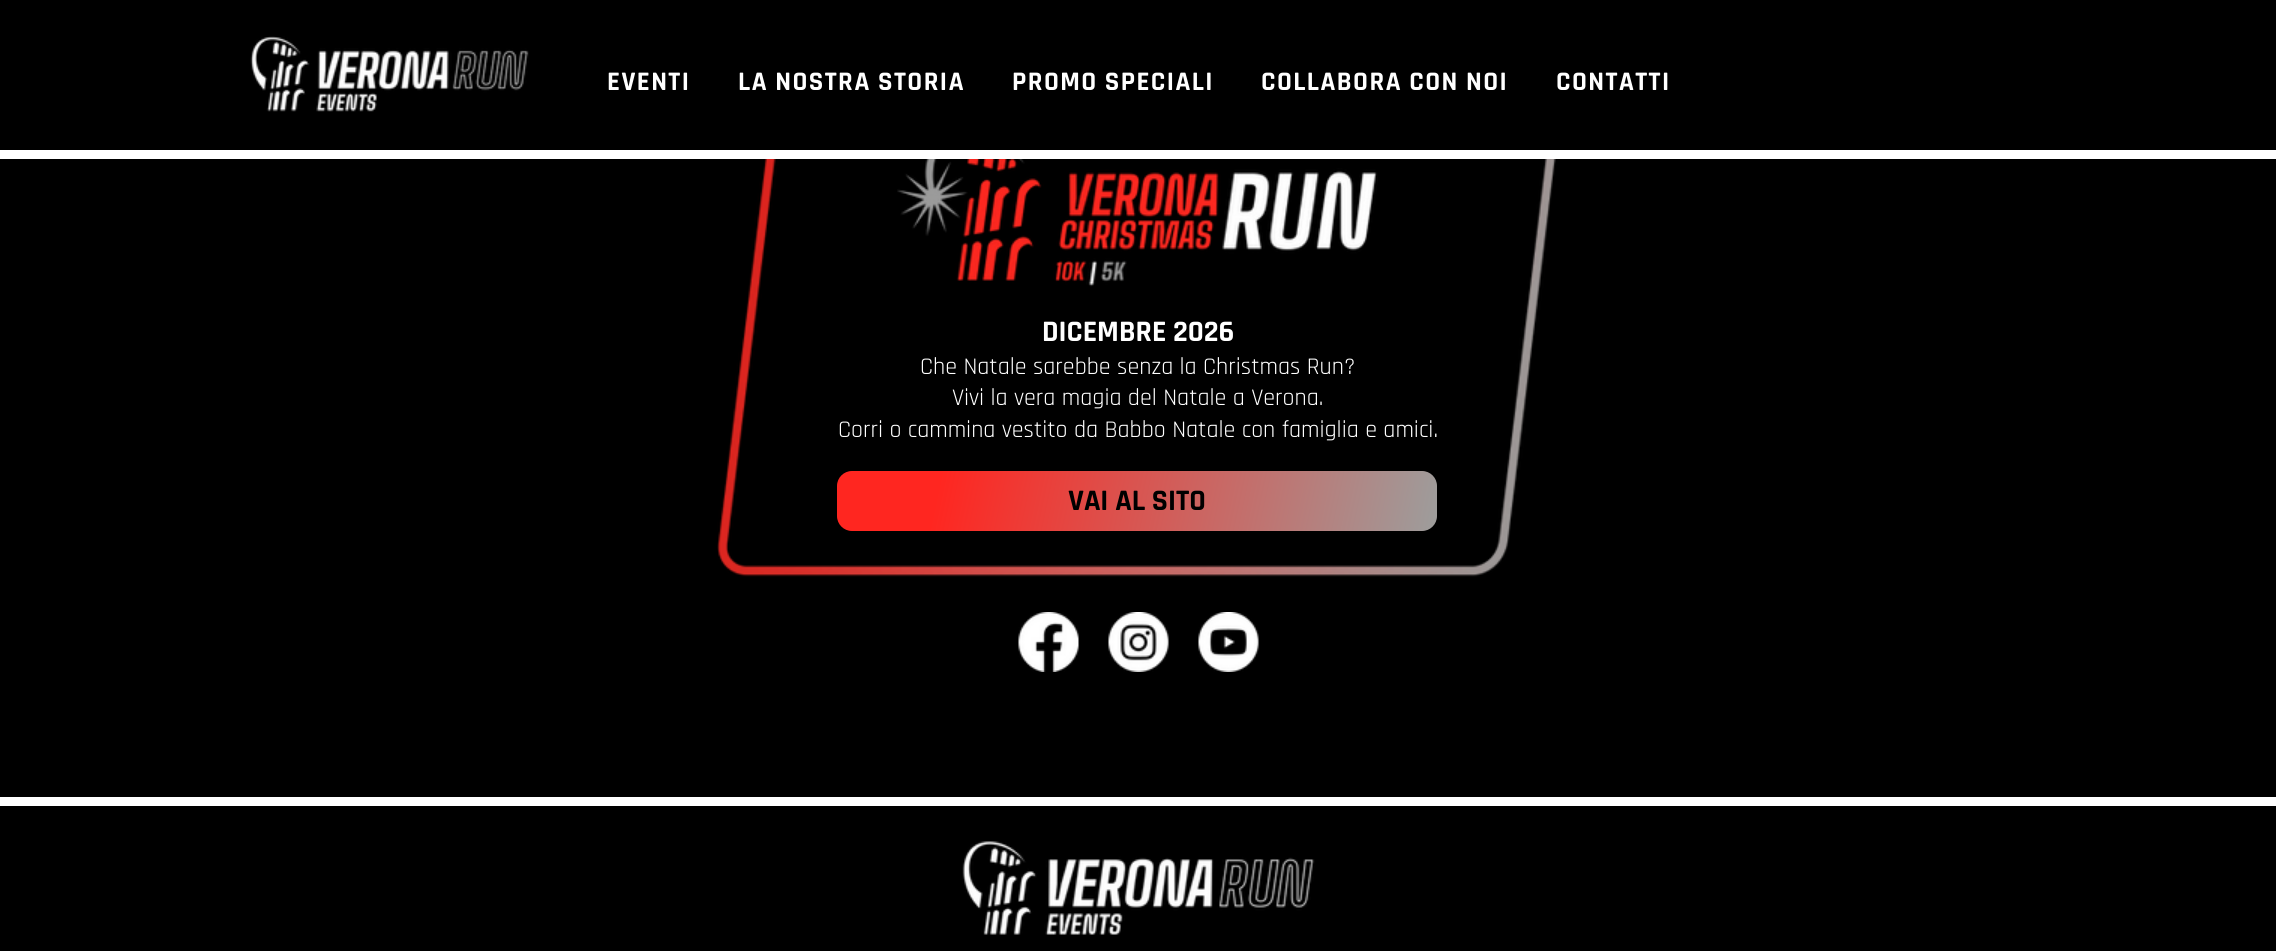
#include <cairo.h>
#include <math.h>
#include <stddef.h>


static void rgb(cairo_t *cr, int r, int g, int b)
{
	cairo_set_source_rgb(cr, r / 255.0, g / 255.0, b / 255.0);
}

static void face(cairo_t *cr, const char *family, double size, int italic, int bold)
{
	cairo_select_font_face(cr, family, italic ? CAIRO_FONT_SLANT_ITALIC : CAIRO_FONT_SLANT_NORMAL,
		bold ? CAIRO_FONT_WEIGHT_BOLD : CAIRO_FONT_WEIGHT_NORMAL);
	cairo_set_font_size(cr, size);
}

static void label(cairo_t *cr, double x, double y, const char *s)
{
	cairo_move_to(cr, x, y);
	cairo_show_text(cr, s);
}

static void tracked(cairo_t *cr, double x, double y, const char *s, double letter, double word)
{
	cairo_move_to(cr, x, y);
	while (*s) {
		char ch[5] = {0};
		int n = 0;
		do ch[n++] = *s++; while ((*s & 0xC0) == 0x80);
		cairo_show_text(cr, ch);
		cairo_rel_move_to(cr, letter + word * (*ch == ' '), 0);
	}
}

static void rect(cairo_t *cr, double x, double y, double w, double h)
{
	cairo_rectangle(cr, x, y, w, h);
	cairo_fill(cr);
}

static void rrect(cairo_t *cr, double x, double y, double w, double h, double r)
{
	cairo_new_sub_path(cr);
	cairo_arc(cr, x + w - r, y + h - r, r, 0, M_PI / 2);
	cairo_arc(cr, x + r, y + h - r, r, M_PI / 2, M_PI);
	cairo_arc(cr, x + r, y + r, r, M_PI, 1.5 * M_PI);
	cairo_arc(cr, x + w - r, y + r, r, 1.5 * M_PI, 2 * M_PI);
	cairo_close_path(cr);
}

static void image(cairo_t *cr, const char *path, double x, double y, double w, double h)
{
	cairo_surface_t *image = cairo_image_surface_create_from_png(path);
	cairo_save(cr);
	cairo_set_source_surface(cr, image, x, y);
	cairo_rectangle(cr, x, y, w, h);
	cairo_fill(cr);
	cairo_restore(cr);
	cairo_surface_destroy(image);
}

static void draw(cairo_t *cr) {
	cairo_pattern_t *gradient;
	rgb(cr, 0, 0, 0);
	cairo_paint(cr);
	image(cr, "image0.png", 250, 36, 279, 76);
	face(cr, "Rajdhani", 27, 0, 1);
	rgb(cr, 255, 255, 255);
	tracked(cr, 607, 90, "EVENTI", 1.4, 0);
	tracked(cr, 738, 90, "LA NOSTRA STORIA", 1.4, 0);
	tracked(cr, 1012, 90, "PROMO SPECIALI", 1.4, 0);
	tracked(cr, 1261, 90, "COLLABORA CON NOI", 1.4, 0);
	tracked(cr, 1556, 90, "CONTATTI", 1.4, 0);
	rect(cr, 0, 150, 2276, 9);
	image(cr, "image1.png", 717, 159, 839, 418);
	image(cr, "image2.png", 897, 159, 481, 128);
	face(cr, "Rajdhani", 30, 0, 1);
	label(cr, 1042, 341, "DICEMBRE 2026");
	face(cr, "Rajdhani", 24, 0, 0);
	label(cr, 920, 374, "Che Natale sarebbe senza la Christmas Run?");
	label(cr, 952, 405, "Vivi la vera magia del Natale a Verona.");
	label(cr, 838, 437, "Corri o cammina vestito da Babbo Natale con famiglia e amici.");
	gradient = cairo_pattern_create_linear(844, 439, 1430, 563);
	cairo_pattern_add_color_stop_rgba(gradient, 0.17, 1, 0.149, 0.125, 1);
	cairo_pattern_add_color_stop_rgba(gradient, 1, 0.616, 0.616, 0.612, 1);
	cairo_set_source(cr, gradient);
	cairo_pattern_destroy(gradient);
	rrect(cr, 837, 471, 600, 60, 15);
	cairo_fill(cr);
	face(cr, "Rajdhani", 30, 0, 1);
	rgb(cr, 0, 0, 0);
	label(cr, 1068, 510, "VAI AL SITO");
	image(cr, "image3.png", 1018, 612, 61, 60);
	image(cr, "image4.png", 1108, 612, 61, 60);
	image(cr, "image5.png", 1198, 612, 61, 60);
	rgb(cr, 255, 255, 255);
	rect(cr, 0, 797, 2276, 9);
	image(cr, "image6.png", 962, 841, 353, 94);
}

int main(void) {
	cairo_surface_t *surface = cairo_image_surface_create(CAIRO_FORMAT_RGB24, 2276, 951);
	cairo_t *cr = cairo_create(surface);
	cairo_font_options_t *options = cairo_font_options_create();
	cairo_font_options_set_hint_metrics(options, CAIRO_HINT_METRICS_OFF);
	cairo_font_options_set_hint_style(options, CAIRO_HINT_STYLE_NONE);
	cairo_set_font_options(cr, options);
	cairo_set_miter_limit(cr, 4);
	draw(cr);
	cairo_surface_write_to_png(surface, "render.png");
	cairo_font_options_destroy(options);
	cairo_destroy(cr);
	cairo_surface_destroy(surface);
	return 0;
}
